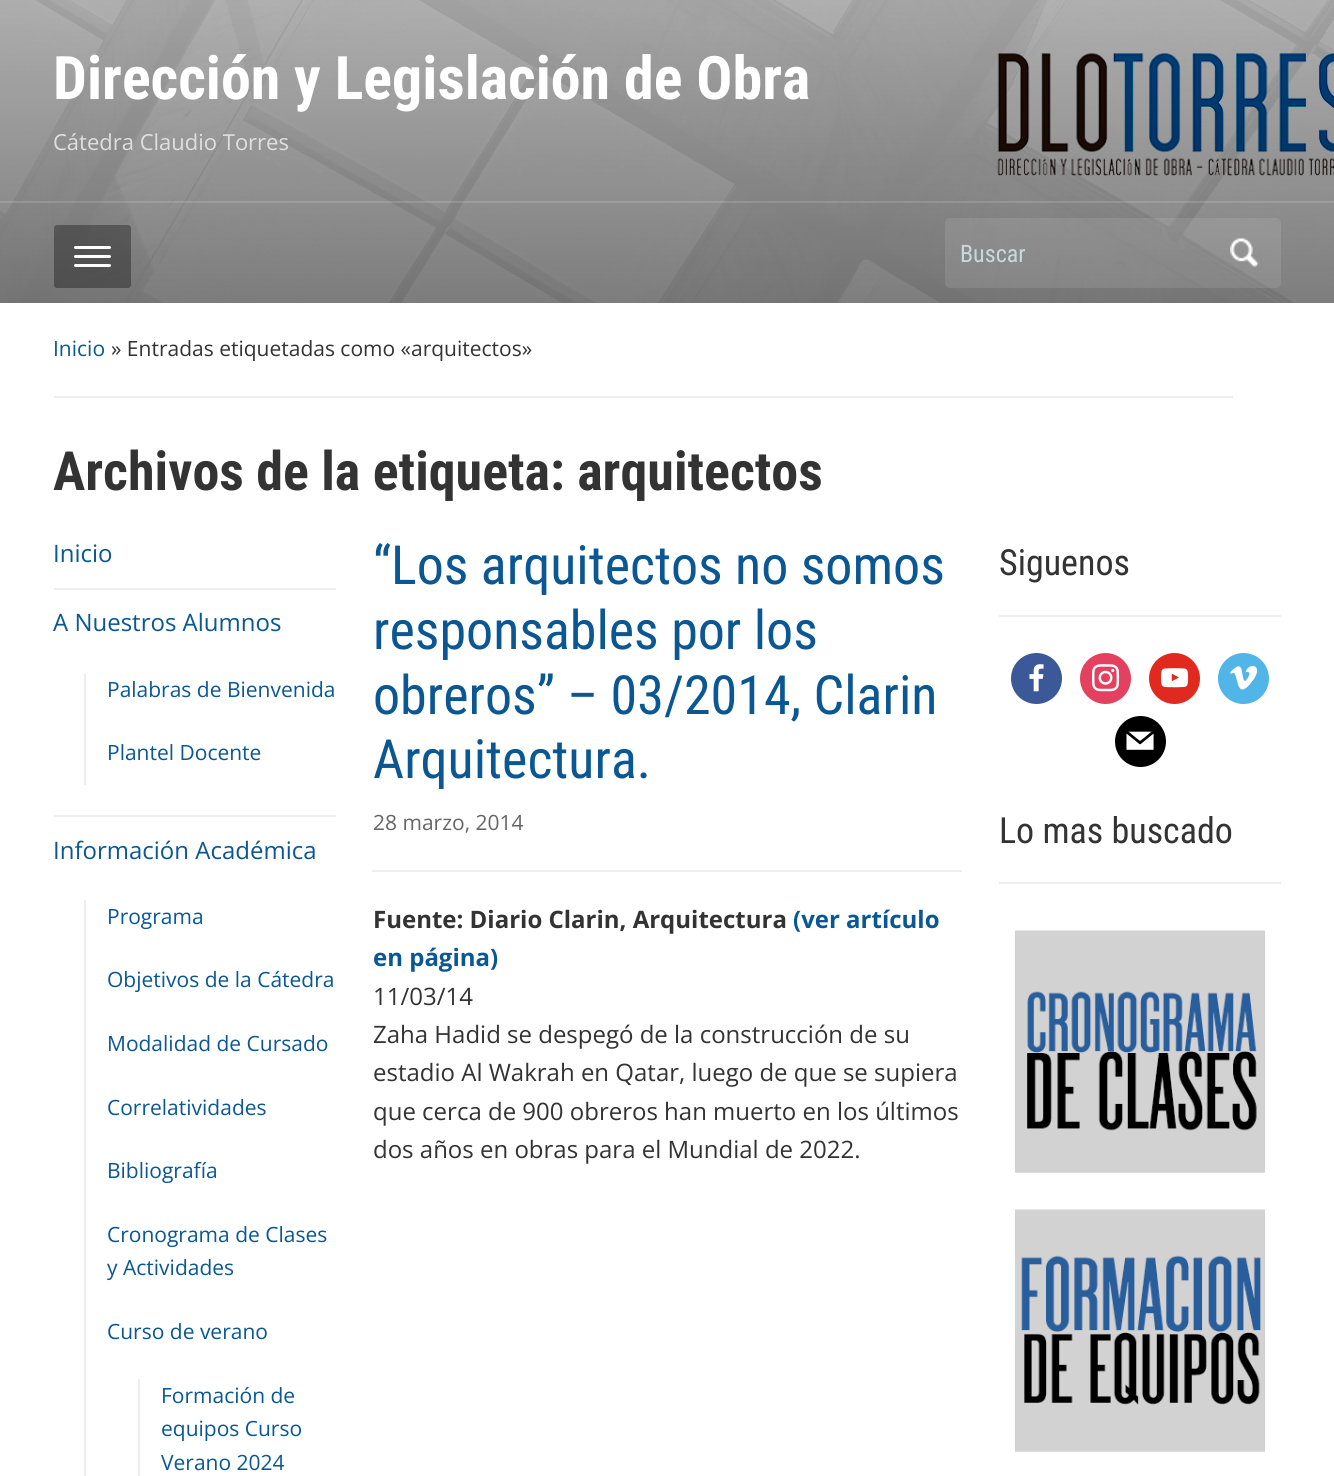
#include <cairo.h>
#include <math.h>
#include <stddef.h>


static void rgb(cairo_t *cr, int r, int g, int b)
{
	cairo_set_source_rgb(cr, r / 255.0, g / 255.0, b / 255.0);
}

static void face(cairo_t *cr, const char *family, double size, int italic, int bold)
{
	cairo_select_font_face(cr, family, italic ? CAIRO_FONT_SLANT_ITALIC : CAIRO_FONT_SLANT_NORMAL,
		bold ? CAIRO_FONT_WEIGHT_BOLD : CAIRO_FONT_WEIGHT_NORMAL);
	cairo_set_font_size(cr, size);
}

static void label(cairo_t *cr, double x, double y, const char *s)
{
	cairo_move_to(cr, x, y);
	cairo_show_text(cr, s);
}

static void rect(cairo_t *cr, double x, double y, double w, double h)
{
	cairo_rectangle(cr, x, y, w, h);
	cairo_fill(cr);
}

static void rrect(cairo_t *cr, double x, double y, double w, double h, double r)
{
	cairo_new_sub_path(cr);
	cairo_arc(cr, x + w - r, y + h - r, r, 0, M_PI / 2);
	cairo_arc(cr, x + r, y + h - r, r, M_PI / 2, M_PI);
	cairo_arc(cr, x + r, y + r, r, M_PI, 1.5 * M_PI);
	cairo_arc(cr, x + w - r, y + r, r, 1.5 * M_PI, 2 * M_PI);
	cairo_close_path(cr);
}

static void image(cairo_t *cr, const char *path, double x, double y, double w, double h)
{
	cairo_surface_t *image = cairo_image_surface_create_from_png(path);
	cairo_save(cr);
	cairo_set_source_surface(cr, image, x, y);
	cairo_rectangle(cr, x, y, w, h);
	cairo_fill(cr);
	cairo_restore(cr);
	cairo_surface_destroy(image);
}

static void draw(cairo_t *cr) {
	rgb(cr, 255, 255, 255);
	cairo_paint(cr);
	image(cr, "image0.png", 0, 0, 1334, 303);
	face(cr, "Roboto Condensed", 60, 0, 1);
	rgb(cr, 255, 255, 255);
	label(cr, 53, 99, "Dirección y Legislación de Obra");
	face(cr, "Open Sans", 22, 0, 0);
	rgb(cr, 223, 223, 223);
	label(cr, 53, 150, "Cátedra Claudio Torres");
	cairo_set_source_rgba(cr, 1, 1, 1, 0.13);
	rect(cr, 0, 201, 1334, 2);
	cairo_set_source_rgba(cr, 0, 0, 0, 0.33);
	rrect(cr, 54, 225, 77, 63, 3);
	cairo_fill(cr);
	rgb(cr, 255, 255, 255);
	rrect(cr, 74, 246, 37, 3, 1.5);
	cairo_fill(cr);
	rrect(cr, 74, 255, 37, 3, 1.5);
	cairo_fill(cr);
	rrect(cr, 74, 264, 37, 3, 1.5);
	cairo_fill(cr);
	cairo_set_source_rgba(cr, 1, 1, 1, 0.1);
	rrect(cr, 945, 218, 336, 70, 5);
	cairo_fill(cr);
	face(cr, "Roboto Condensed", 24, 0, 0);
	rgb(cr, 198, 217, 219);
	label(cr, 960, 262, "Buscar");
	image(cr, "image1.png", 1230, 238, 29, 29);
	rgb(cr, 238, 238, 238);
	rect(cr, 54, 396, 1179, 2);
	face(cr, "Open Sans", 21, 0, 0);
	rgb(cr, 10, 87, 148);
	label(cr, 53, 356, "Inicio");
	rgb(cr, 51, 51, 51);
	label(cr, 111, 356, "» Entradas etiquetadas como «arquitectos»");
	face(cr, "Roboto Condensed", 54, 0, 1);
	label(cr, 53, 490, "Archivos de la etiqueta: arquitectos");
	rgb(cr, 238, 238, 238);
	rect(cr, 54, 588, 282, 2);
	face(cr, "Open Sans", 24, 0, 0);
	rgb(cr, 10, 87, 148);
	label(cr, 53, 562, "Inicio");
	rgb(cr, 238, 238, 238);
	rect(cr, 54, 815, 282, 2);
	rgb(cr, 10, 87, 148);
	label(cr, 53, 631, "A Nuestros Alumnos");
	rgb(cr, 238, 238, 238);
	rect(cr, 84, 674, 2, 111);
	face(cr, "Open Sans", 21, 0, 0);
	rgb(cr, 10, 87, 148);
	label(cr, 107, 697, "Palabras de Bienvenida");
	label(cr, 107, 760, "Plantel Docente");
	face(cr, "Open Sans", 24, 0, 0);
	label(cr, 53, 859, "Información Académica");
	rgb(cr, 238, 238, 238);
	rect(cr, 84, 900, 2, 576);
	face(cr, "Open Sans", 21, 0, 0);
	rgb(cr, 10, 87, 148);
	label(cr, 107, 924, "Programa");
	label(cr, 107, 987, "Objetivos de la Cátedra");
	label(cr, 107, 1051, "Modalidad de Cursado");
	label(cr, 107, 1115, "Correlatividades");
	label(cr, 107, 1178, "Bibliografía");
	label(cr, 107, 1242, "Cronograma de Clases");
	label(cr, 107, 1275, "y Actividades");
	label(cr, 107, 1339, "Curso de verano");
	rgb(cr, 238, 238, 238);
	rect(cr, 138, 1379, 2, 97);
	rgb(cr, 10, 87, 148);
	label(cr, 161, 1403, "Formación de");
	label(cr, 161, 1436, "equipos Curso");
	label(cr, 161, 1470, "Verano 2024");
	face(cr, "Roboto Condensed", 54, 0, 0);
	label(cr, 373, 584, "“Los arquitectos no somos");
	label(cr, 373, 649, "responsables por los");
	label(cr, 373, 714, "obreros” – 03/2014, Clarin");
	label(cr, 373, 778, "Arquitectura.");
	rgb(cr, 238, 238, 238);
	rect(cr, 372, 870, 590, 2);
	face(cr, "Open Sans", 21, 0, 0);
	rgb(cr, 102, 102, 102);
	label(cr, 373, 830, "28 marzo, 2014");
	face(cr, "Open Sans", 24, 0, 1);
	rgb(cr, 51, 51, 51);
	label(cr, 373, 928, "Fuente: Diario Clarin, Arquitectura");
	rgb(cr, 10, 87, 148);
	label(cr, 793, 928, "(ver artículo");
	label(cr, 373, 966, "en página)");
	face(cr, "Open Sans", 24, 0, 0);
	rgb(cr, 51, 51, 51);
	label(cr, 373, 1005, "11/03/14");
	label(cr, 373, 1043, "Zaha Hadid se despegó de la construcción de su");
	label(cr, 373, 1081, "estadio Al Wakrah en Qatar, luego de que se supiera");
	label(cr, 373, 1120, "que cerca de 900 obreros han muerto en los últimos");
	label(cr, 373, 1158, "dos años en obras para el Mundial de 2022.");
	rgb(cr, 238, 238, 238);
	rect(cr, 999, 615, 282, 2);
	face(cr, "Roboto Condensed", 36, 0, 0);
	rgb(cr, 51, 51, 51);
	label(cr, 999, 575, "Siguenos");
	rgb(cr, 59, 89, 152);
	cairo_new_path(cr);
	cairo_arc(cr, 1036.5, 678.5, 25.5, 0, 2 * M_PI);
	cairo_fill(cr);
	image(cr, "image2.png", 1029, 664, 15, 28);
	rgb(cr, 228, 64, 95);
	cairo_arc(cr, 1105.5, 678.5, 25.5, 0, 2 * M_PI);
	cairo_fill(cr);
	image(cr, "image3.png", 1092, 664, 28, 28);
	rgb(cr, 224, 42, 32);
	cairo_arc(cr, 1174.5, 678.5, 25.5, 0, 2 * M_PI);
	cairo_fill(cr);
	image(cr, "image4.png", 1161, 668, 28, 20);
	rgb(cr, 81, 181, 231);
	cairo_arc(cr, 1243.5, 678.5, 25.5, 0, 2 * M_PI);
	cairo_fill(cr);
	image(cr, "image5.png", 1230, 666, 28, 24);
	rgb(cr, 0, 0, 0);
	cairo_arc(cr, 1140.5, 741.5, 25.5, 0, 2 * M_PI);
	cairo_fill(cr);
	image(cr, "image6.png", 1126, 731, 28, 19);
	rgb(cr, 238, 238, 238);
	rect(cr, 999, 882, 282, 2);
	rgb(cr, 51, 51, 51);
	label(cr, 999, 843, "Lo mas buscado");
	image(cr, "image7.png", 1015, 930, 250, 243);
	image(cr, "image8.png", 1015, 1209, 250, 243);
}

int main(void) {
	cairo_surface_t *surface = cairo_image_surface_create(CAIRO_FORMAT_RGB24, 1334, 1476);
	cairo_t *cr = cairo_create(surface);
	cairo_font_options_t *options = cairo_font_options_create();
	cairo_font_options_set_hint_metrics(options, CAIRO_HINT_METRICS_OFF);
	cairo_font_options_set_hint_style(options, CAIRO_HINT_STYLE_NONE);
	cairo_set_font_options(cr, options);
	cairo_set_miter_limit(cr, 4);
	draw(cr);
	cairo_surface_write_to_png(surface, "render.png");
	cairo_font_options_destroy(options);
	cairo_destroy(cr);
	cairo_surface_destroy(surface);
	return 0;
}
